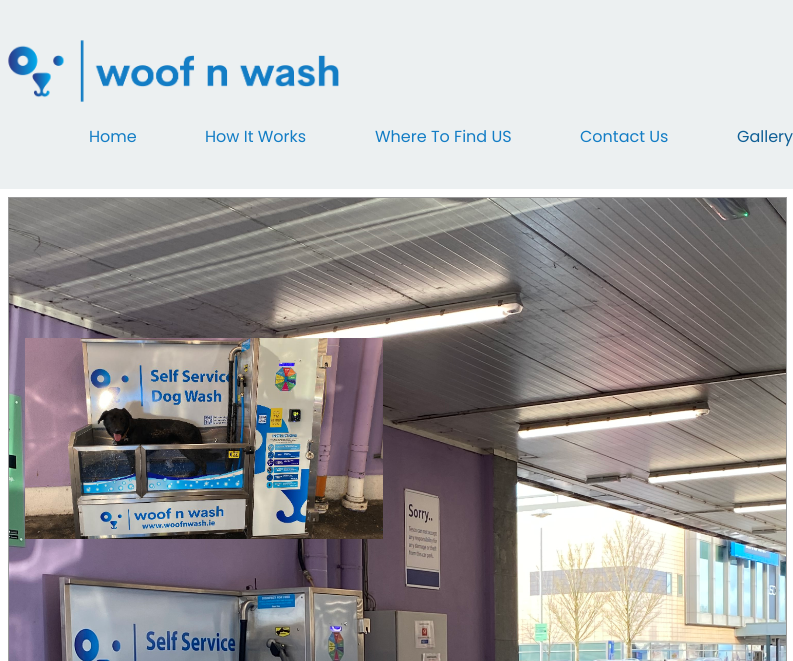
#include <cairo.h>
#include <math.h>
#include <stddef.h>


static void rgb(cairo_t *cr, int r, int g, int b)
{
	cairo_set_source_rgb(cr, r / 255.0, g / 255.0, b / 255.0);
}

static void face(cairo_t *cr, const char *family, double size, int italic, int bold)
{
	cairo_select_font_face(cr, family, italic ? CAIRO_FONT_SLANT_ITALIC : CAIRO_FONT_SLANT_NORMAL,
		bold ? CAIRO_FONT_WEIGHT_BOLD : CAIRO_FONT_WEIGHT_NORMAL);
	cairo_set_font_size(cr, size);
}

static void label(cairo_t *cr, double x, double y, const char *s)
{
	cairo_move_to(cr, x, y);
	cairo_show_text(cr, s);
}

static void rect(cairo_t *cr, double x, double y, double w, double h)
{
	cairo_rectangle(cr, x, y, w, h);
	cairo_fill(cr);
}

static void image(cairo_t *cr, const char *path, double x, double y, double w, double h)
{
	cairo_surface_t *image = cairo_image_surface_create_from_png(path);
	cairo_save(cr);
	cairo_set_source_surface(cr, image, x, y);
	cairo_rectangle(cr, x, y, w, h);
	cairo_fill(cr);
	cairo_restore(cr);
	cairo_surface_destroy(image);
}

static void draw(cairo_t *cr) {
	rgb(cr, 255, 255, 255);
	cairo_paint(cr);
	rgb(cr, 236, 240, 241);
	rect(cr, 0, 0, 793, 189);
	image(cr, "image0.png", 8, 40, 331, 62);
	face(cr, "Poppins", 16, 0, 0);
	rgb(cr, 19, 125, 197);
	label(cr, 89, 142, "Home");
	label(cr, 205, 142, "How It Works");
	label(cr, 375, 142, "Where To Find US");
	label(cr, 580, 142, "Contact Us");
	rgb(cr, 15, 95, 150);
	label(cr, 737, 142, "Gallery");
	cairo_rectangle(cr, 8.5, 197.5, 778, 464);
	rgb(cr, 153, 153, 153);
	cairo_set_line_width(cr, 1);
	cairo_stroke(cr);
	image(cr, "image1.png", 9, 198, 777, 463);
	image(cr, "image2.png", 25, 338, 358, 201);
}

int main(void) {
	cairo_surface_t *surface = cairo_image_surface_create(CAIRO_FORMAT_RGB24, 793, 661);
	cairo_t *cr = cairo_create(surface);
	cairo_font_options_t *options = cairo_font_options_create();
	cairo_font_options_set_hint_metrics(options, CAIRO_HINT_METRICS_OFF);
	cairo_font_options_set_hint_style(options, CAIRO_HINT_STYLE_NONE);
	cairo_set_font_options(cr, options);
	cairo_set_miter_limit(cr, 4);
	draw(cr);
	cairo_surface_write_to_png(surface, "render.png");
	cairo_font_options_destroy(options);
	cairo_destroy(cr);
	cairo_surface_destroy(surface);
	return 0;
}
